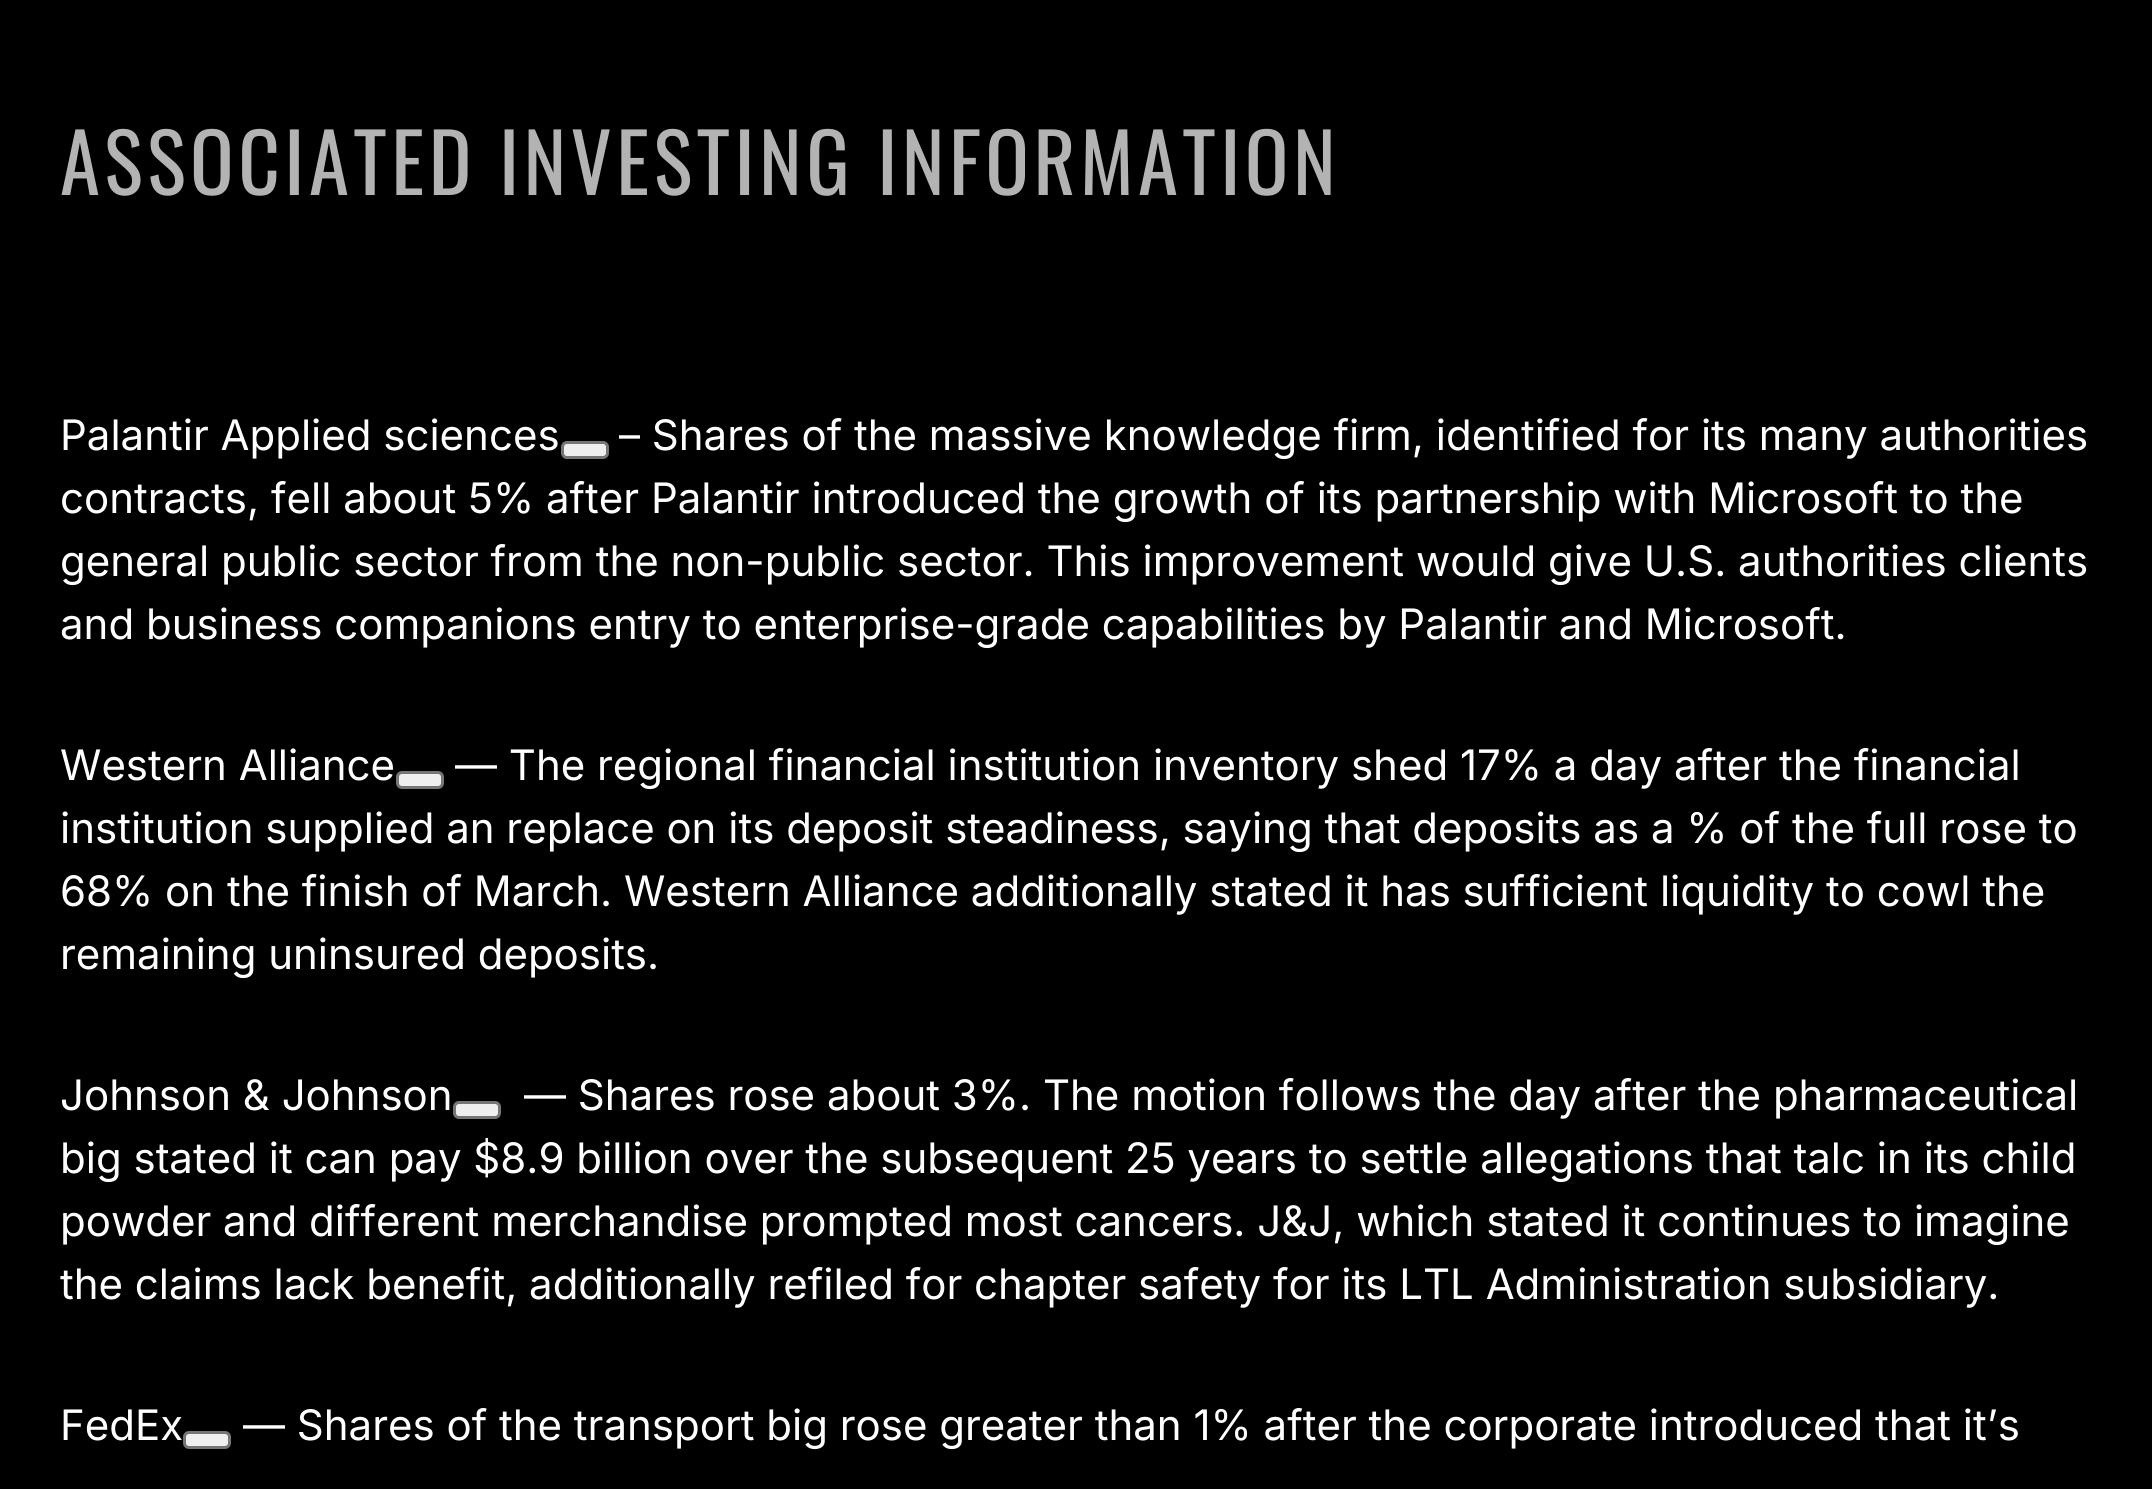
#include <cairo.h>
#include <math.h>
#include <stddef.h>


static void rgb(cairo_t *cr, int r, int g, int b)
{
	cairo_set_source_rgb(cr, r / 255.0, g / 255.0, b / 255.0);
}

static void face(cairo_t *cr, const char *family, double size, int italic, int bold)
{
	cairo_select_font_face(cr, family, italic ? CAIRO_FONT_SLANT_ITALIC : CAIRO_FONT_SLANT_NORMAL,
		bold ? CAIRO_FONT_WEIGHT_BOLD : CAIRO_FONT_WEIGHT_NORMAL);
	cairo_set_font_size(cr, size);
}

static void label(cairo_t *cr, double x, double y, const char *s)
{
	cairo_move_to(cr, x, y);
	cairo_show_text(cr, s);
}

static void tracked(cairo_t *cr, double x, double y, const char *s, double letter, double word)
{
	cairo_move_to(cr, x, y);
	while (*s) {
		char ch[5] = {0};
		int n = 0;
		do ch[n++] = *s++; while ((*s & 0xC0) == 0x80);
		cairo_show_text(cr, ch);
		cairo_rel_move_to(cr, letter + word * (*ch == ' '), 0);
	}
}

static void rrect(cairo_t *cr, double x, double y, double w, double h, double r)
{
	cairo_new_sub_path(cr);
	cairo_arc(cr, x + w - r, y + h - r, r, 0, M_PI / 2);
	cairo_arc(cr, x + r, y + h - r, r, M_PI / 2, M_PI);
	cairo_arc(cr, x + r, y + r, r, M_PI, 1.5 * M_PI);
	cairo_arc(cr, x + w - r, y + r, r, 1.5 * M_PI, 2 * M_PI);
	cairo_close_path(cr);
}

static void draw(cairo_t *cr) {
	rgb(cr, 0, 0, 0);
	cairo_paint(cr);
	face(cr, "Oswald", 81, 0, 0);
	rgb(cr, 179, 179, 179);
	tracked(cr, 60, 195, "ASSOCIATED INVESTING INFORMATION", 4.5, 0);
	face(cr, "Inter", 42, 0, 0);
	rgb(cr, 255, 255, 255);
	label(cr, 60, 450, "Palantir Applied sciences");
	rgb(cr, 239, 239, 239);
	rrect(cr, 562.5, 442.5, 45, 15, 4.5);
	cairo_fill_preserve(cr);
	rgb(cr, 118, 118, 118);
	cairo_set_line_width(cr, 3);
	cairo_stroke(cr);
	rgb(cr, 255, 255, 255);
	label(cr, 619, 450, "– Shares of the massive knowledge firm, identified for its many authorities");
	label(cr, 60, 513, "contracts, fell about 5% after Palantir introduced the growth of its partnership with Microsoft to the");
	label(cr, 60, 576, "general public sector from the non-public sector. This improvement would give U.S. authorities clients");
	label(cr, 60, 639, "and business companions entry to enterprise-grade capabilities by Palantir and Microsoft.");
	label(cr, 60, 780, "Western Alliance");
	rgb(cr, 239, 239, 239);
	rrect(cr, 397.5, 772.5, 45, 15, 4.5);
	cairo_fill_preserve(cr);
	rgb(cr, 118, 118, 118);
	cairo_stroke(cr);
	rgb(cr, 255, 255, 255);
	label(cr, 455, 780, "— The regional financial institution inventory shed 17% a day after the financial");
	label(cr, 60, 843, "institution supplied an replace on its deposit steadiness, saying that deposits as a % of the full rose to");
	label(cr, 60, 906, "68% on the finish of March. Western Alliance additionally stated it has sufficient liquidity to cowl the");
	label(cr, 60, 969, "remaining uninsured deposits.");
	label(cr, 60, 1110, "Johnson & Johnson");
	rgb(cr, 239, 239, 239);
	rrect(cr, 454.5, 1102.5, 45, 15, 4.5);
	cairo_fill_preserve(cr);
	rgb(cr, 118, 118, 118);
	cairo_stroke(cr);
	rgb(cr, 255, 255, 255);
	label(cr, 524, 1110, "— Shares rose about 3%. The motion follows the day after the pharmaceutical");
	label(cr, 60, 1173, "big stated it can pay $8.9 billion over the subsequent 25 years to settle allegations that talc in its child");
	label(cr, 60, 1236, "powder and different merchandise prompted most cancers. J&J, which stated it continues to imagine");
	label(cr, 60, 1299, "the claims lack benefit, additionally refiled for chapter safety for its LTL Administration subsidiary.");
	label(cr, 60, 1440, "FedEx");
	rgb(cr, 239, 239, 239);
	rrect(cr, 184.5, 1432.5, 45, 15, 4.5);
	cairo_fill_preserve(cr);
	rgb(cr, 118, 118, 118);
	cairo_stroke(cr);
	rgb(cr, 255, 255, 255);
	label(cr, 243, 1440, "— Shares of the transport big rose greater than 1% after the corporate introduced that it’s");
}

int main(void) {
	cairo_surface_t *surface = cairo_image_surface_create(CAIRO_FORMAT_RGB24, 2152, 1489);
	cairo_t *cr = cairo_create(surface);
	cairo_font_options_t *options = cairo_font_options_create();
	cairo_font_options_set_hint_metrics(options, CAIRO_HINT_METRICS_OFF);
	cairo_font_options_set_hint_style(options, CAIRO_HINT_STYLE_NONE);
	cairo_set_font_options(cr, options);
	cairo_set_miter_limit(cr, 4);
	draw(cr);
	cairo_surface_write_to_png(surface, "render.png");
	cairo_font_options_destroy(options);
	cairo_destroy(cr);
	cairo_surface_destroy(surface);
	return 0;
}
